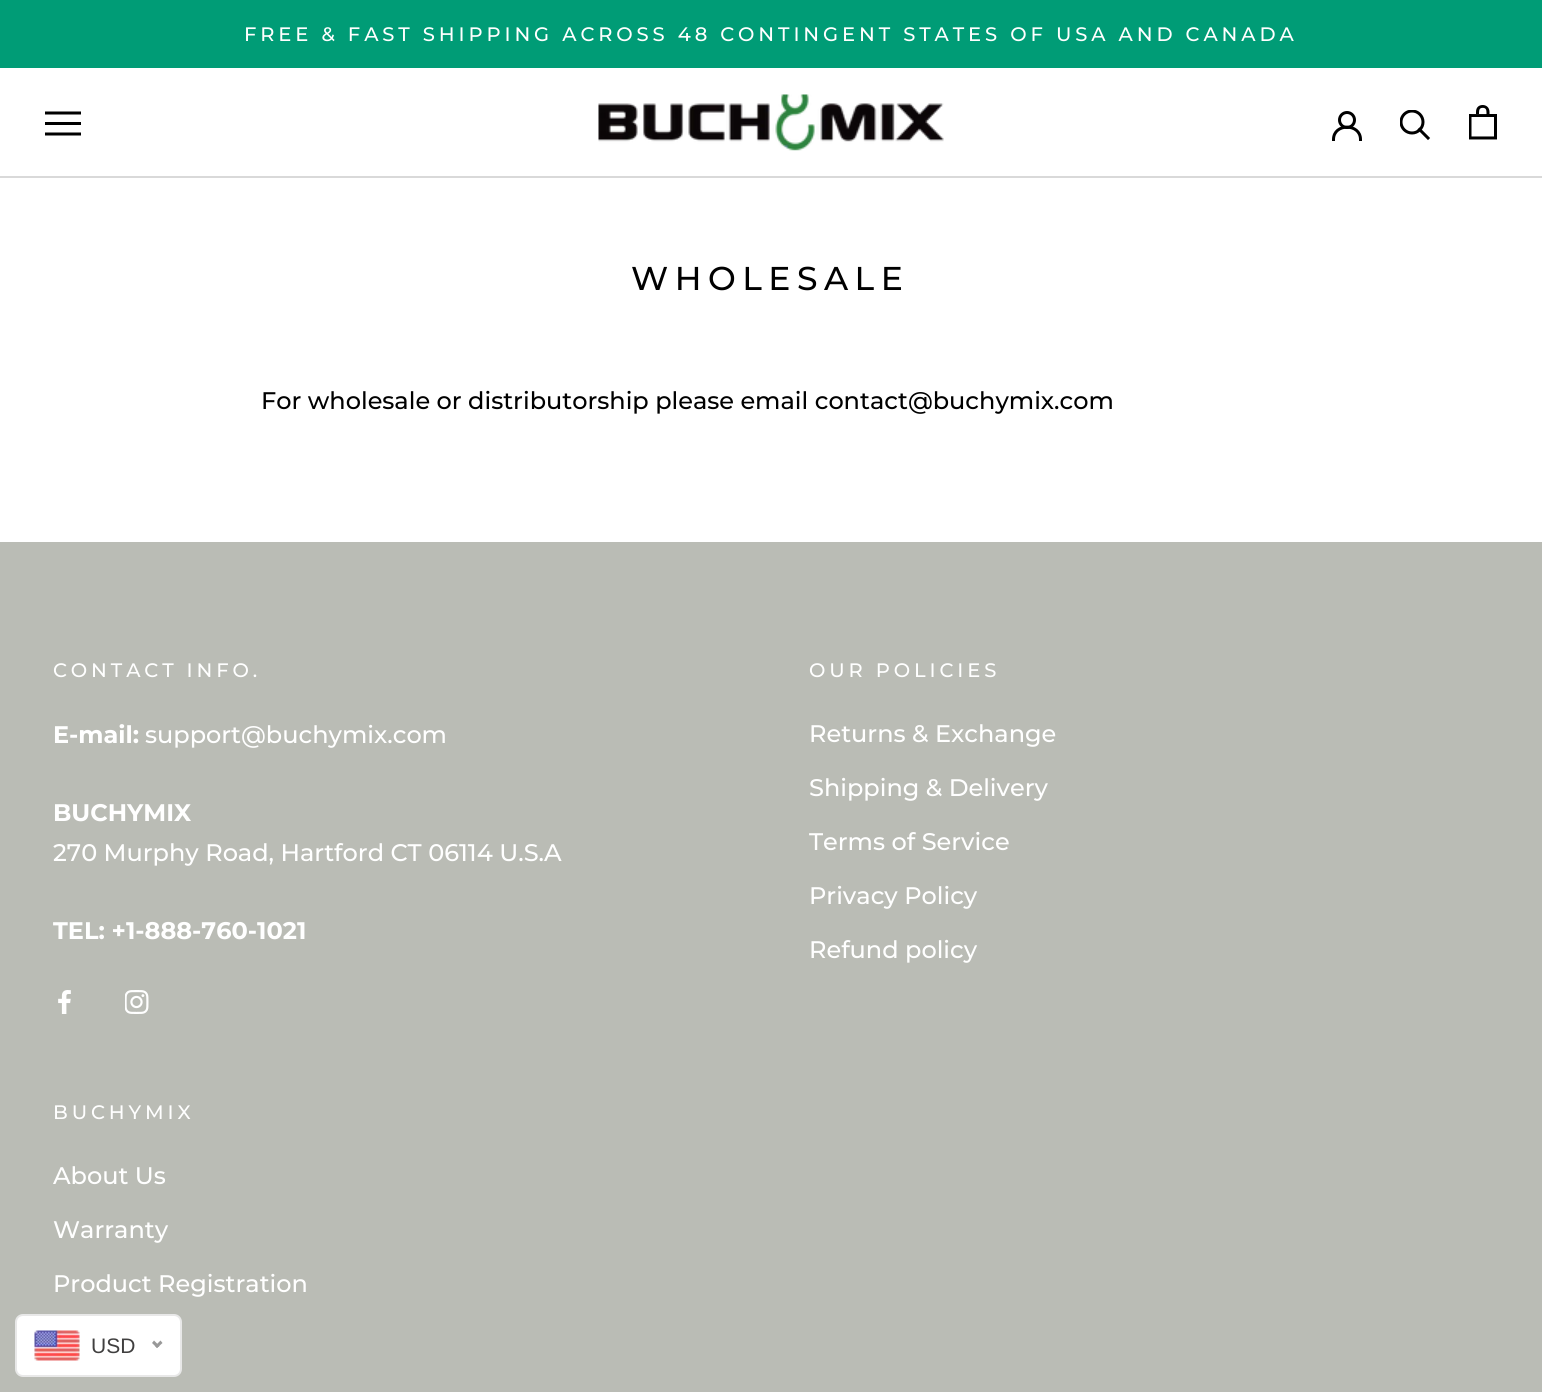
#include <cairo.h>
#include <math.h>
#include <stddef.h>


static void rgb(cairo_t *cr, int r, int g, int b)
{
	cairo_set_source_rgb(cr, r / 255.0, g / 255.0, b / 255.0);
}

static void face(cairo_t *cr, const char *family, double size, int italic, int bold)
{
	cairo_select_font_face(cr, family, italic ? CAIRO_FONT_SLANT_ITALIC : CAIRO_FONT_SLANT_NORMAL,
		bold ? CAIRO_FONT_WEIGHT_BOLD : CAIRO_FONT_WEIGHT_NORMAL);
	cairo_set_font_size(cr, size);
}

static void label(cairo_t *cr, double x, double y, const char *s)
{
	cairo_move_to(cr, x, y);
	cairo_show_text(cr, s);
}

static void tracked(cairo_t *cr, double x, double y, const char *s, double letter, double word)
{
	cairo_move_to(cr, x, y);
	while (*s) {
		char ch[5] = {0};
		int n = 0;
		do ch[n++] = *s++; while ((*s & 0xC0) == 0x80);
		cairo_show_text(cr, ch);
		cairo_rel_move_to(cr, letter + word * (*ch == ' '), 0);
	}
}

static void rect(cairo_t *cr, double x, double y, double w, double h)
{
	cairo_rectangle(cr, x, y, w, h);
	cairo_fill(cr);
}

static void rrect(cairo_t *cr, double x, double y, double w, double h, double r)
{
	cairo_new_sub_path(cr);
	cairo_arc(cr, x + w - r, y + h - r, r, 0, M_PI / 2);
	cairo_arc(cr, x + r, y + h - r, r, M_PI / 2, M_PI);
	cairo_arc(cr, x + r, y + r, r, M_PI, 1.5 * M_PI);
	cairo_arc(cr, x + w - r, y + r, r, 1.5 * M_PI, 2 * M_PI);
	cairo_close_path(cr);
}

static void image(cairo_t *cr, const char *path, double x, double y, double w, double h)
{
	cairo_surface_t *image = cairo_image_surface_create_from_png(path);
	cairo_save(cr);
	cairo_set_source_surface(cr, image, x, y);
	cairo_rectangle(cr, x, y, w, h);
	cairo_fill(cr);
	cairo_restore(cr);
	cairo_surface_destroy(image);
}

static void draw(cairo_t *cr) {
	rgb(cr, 255, 255, 255);
	cairo_paint(cr);
	rgb(cr, 0, 156, 118);
	rect(cr, 0, 0, 1542, 68);
	face(cr, "Montserrat Medium", 19.5, 0, 0);
	rgb(cr, 255, 255, 255);
	tracked(cr, 244, 41, "FREE & FAST SHIPPING ACROSS 48 CONTINGENT STATES OF USA AND CANADA", 3.9, 0);
	rgb(cr, 217, 217, 217);
	rect(cr, 0, 176, 1542, 2);
	rgb(cr, 0, 0, 0);
	cairo_new_path(cr);
	cairo_move_to(cr, 45, 135.5);
	cairo_line_to(cr, 45, 132.5);
	cairo_line_to(cr, 81, 132.5);
	cairo_line_to(cr, 81, 135.5);
	cairo_close_path(cr);
	cairo_move_to(cr, 45, 122);
	cairo_line_to(cr, 81, 122);
	cairo_line_to(cr, 81, 125);
	cairo_line_to(cr, 45, 125);
	cairo_close_path(cr);
	cairo_move_to(cr, 45, 111.5);
	cairo_line_to(cr, 81, 111.5);
	cairo_line_to(cr, 81, 114.5);
	cairo_line_to(cr, 45, 114.5);
	cairo_close_path(cr);
	cairo_fill(cr);
	image(cr, "image0.png", 598, 94, 346, 57);
	cairo_new_path(cr);
	cairo_move_to(cr, 1333.5, 139.5);
	cairo_curve_to(cr, 1333.5, 123, 1360.5, 123, 1360.5, 139.5);
	cairo_set_line_width(cr, 3);
	cairo_set_line_cap(cr, CAIRO_LINE_CAP_SQUARE);
	cairo_stroke(cr);
	cairo_arc(cr, 1347, 120, 7.5, 0, 2 * M_PI);
	cairo_set_line_cap(cr, CAIRO_LINE_CAP_BUTT);
	cairo_stroke(cr);
	cairo_new_path(cr);
	cairo_move_to(cr, 1428, 138);
	cairo_line_to(cr, 1419.5, 129.5);
	cairo_set_line_cap(cr, CAIRO_LINE_CAP_SQUARE);
	cairo_stroke(cr);
	cairo_save(cr);
	cairo_rectangle(cr, 1400, 110, 31, 31);
	cairo_clip(cr);
	cairo_arc(cr, 1412, 122, 11, 0, 2 * M_PI);
	cairo_set_line_cap(cr, CAIRO_LINE_CAP_BUTT);
	cairo_stroke(cr);
	cairo_restore(cr);
	image(cr, "image1.png", 1469, 105, 28, 35);
	face(cr, "Montserrat Medium", 33, 0, 0);
	tracked(cr, 631, 290, "WHOLESALE", 6.5, 0);
	face(cr, "Montserrat Medium", 24, 0, 0);
	label(cr, 261, 409, "For wholesale or distributorship please email contact@buchymix.com");
	rgb(cr, 186, 188, 181);
	rect(cr, 0, 542, 1542, 850);
	face(cr, "Montserrat Medium", 19.5, 0, 0);
	rgb(cr, 255, 255, 255);
	tracked(cr, 53, 677, "CONTACT INFO.", 3.9, 0);
	face(cr, "Montserrat", 24, 0, 1);
	label(cr, 53, 743, "E-mail:");
	face(cr, "Montserrat Medium", 24, 0, 0);
	label(cr, 145, 743, "support@buchymix.com");
	face(cr, "Montserrat", 24, 0, 1);
	label(cr, 53, 821, "BUCHYMIX");
	face(cr, "Montserrat Medium", 24, 0, 0);
	label(cr, 53, 861, "270 Murphy Road, Hartford CT 06114 U.S.A");
	face(cr, "Montserrat", 24, 0, 1);
	label(cr, 53, 939, "TEL: +1-888-760-1021");
	image(cr, "image2.png", 58, 990, 13, 24);
	image(cr, "image3.png", 125, 990, 24, 24);
	face(cr, "Montserrat Medium", 19.5, 0, 0);
	tracked(cr, 809, 677, "OUR POLICIES", 3.9, 0);
	face(cr, "Montserrat Medium", 24, 0, 0);
	label(cr, 809, 742, "Returns & Exchange");
	label(cr, 809, 796, "Shipping & Delivery");
	label(cr, 809, 850, "Terms of Service");
	label(cr, 809, 904, "Privacy Policy");
	label(cr, 809, 958, "Refund policy");
	face(cr, "Montserrat Medium", 19.5, 0, 0);
	tracked(cr, 53, 1119, "BUCHYMIX", 3.9, 0);
	face(cr, "Montserrat Medium", 24, 0, 0);
	label(cr, 53, 1184, "About Us");
	label(cr, 53, 1238, "Warranty");
	label(cr, 53, 1292, "Product Registration");
	rrect(cr, 16, 1315, 165, 61, 7);
	cairo_fill_preserve(cr);
	rgb(cr, 232, 232, 232);
	cairo_set_line_width(cr, 2);
	cairo_set_line_cap(cr, CAIRO_LINE_CAP_BUTT);
	cairo_stroke(cr);
	image(cr, "image4.png", 34, 1330, 46, 31);
	face(cr, "Liberation Sans", 21, 0, 0);
	rgb(cr, 64, 63, 63);
	label(cr, 91, 1353, "USD");
	rgb(cr, 153, 153, 153);
	cairo_new_path(cr);
	cairo_move_to(cr, 160.5, 1340.5);
	cairo_line_to(cr, 162.5, 1343);
	cairo_line_to(cr, 157, 1348);
	cairo_line_to(cr, 155, 1346);
	cairo_close_path(cr);
	cairo_fill(cr);
	cairo_new_path(cr);
	cairo_move_to(cr, 154, 1340.5);
	cairo_line_to(cr, 159.5, 1346);
	cairo_line_to(cr, 157, 1348);
	cairo_line_to(cr, 152, 1343);
	cairo_close_path(cr);
	cairo_fill(cr);
}

int main(void) {
	cairo_surface_t *surface = cairo_image_surface_create(CAIRO_FORMAT_RGB24, 1542, 1392);
	cairo_t *cr = cairo_create(surface);
	cairo_font_options_t *options = cairo_font_options_create();
	cairo_font_options_set_hint_metrics(options, CAIRO_HINT_METRICS_OFF);
	cairo_font_options_set_hint_style(options, CAIRO_HINT_STYLE_NONE);
	cairo_set_font_options(cr, options);
	cairo_set_miter_limit(cr, 4);
	draw(cr);
	cairo_surface_write_to_png(surface, "render.png");
	cairo_font_options_destroy(options);
	cairo_destroy(cr);
	cairo_surface_destroy(surface);
	return 0;
}
